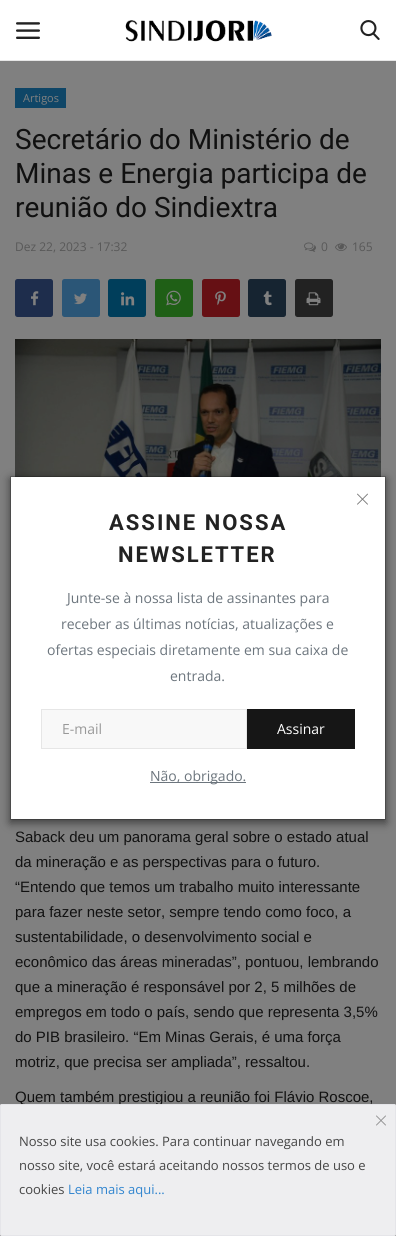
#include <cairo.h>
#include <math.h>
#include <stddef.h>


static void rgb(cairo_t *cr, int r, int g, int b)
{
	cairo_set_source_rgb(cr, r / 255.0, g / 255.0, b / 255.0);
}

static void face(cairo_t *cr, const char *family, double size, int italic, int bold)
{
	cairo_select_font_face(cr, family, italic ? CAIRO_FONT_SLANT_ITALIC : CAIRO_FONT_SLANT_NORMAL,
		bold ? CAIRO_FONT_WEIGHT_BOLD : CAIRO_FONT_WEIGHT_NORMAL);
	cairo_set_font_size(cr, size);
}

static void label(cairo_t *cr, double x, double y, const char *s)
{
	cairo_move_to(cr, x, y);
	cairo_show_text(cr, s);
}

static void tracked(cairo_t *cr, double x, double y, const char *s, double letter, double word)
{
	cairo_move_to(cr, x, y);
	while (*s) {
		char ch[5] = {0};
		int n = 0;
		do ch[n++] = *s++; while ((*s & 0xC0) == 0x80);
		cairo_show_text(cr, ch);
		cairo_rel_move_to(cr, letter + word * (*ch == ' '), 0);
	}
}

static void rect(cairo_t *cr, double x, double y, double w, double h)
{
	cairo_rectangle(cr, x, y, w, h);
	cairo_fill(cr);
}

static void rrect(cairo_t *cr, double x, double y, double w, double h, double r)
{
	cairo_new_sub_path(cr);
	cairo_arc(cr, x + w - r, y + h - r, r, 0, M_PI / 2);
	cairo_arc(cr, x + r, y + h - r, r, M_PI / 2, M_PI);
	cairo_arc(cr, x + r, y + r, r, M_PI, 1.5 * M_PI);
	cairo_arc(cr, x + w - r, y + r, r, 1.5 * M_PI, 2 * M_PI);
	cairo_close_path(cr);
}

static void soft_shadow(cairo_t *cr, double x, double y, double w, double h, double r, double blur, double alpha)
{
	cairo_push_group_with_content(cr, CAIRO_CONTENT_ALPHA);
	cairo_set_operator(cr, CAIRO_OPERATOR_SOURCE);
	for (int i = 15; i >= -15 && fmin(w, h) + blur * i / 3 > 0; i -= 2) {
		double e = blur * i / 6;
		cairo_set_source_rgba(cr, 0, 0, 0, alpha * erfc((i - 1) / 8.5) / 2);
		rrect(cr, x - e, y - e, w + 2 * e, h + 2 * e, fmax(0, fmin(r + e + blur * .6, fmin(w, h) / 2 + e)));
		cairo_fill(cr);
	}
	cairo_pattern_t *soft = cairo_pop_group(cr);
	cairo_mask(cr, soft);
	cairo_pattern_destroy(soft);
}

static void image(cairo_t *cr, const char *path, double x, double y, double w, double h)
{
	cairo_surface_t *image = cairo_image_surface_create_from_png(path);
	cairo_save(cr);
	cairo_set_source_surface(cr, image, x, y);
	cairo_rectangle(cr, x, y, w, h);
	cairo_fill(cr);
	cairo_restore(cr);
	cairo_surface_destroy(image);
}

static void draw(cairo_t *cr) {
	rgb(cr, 128, 128, 128);
	cairo_paint(cr);
	rgb(cr, 255, 255, 255);
	rect(cr, 0, 0, 396, 60);
	rgb(cr, 230, 230, 230);
	rect(cr, 0, 60, 396, 1);
	image(cr, "image0.png", 16, 22, 24, 17);
	image(cr, "image1.png", 125, 20, 147, 22);
	image(cr, "image2.png", 360, 20, 20, 20);
	rgb(cr, 15, 70, 103);
	rect(cr, 15, 88, 51, 20);
	face(cr, "Open Sans", 11, 0, 0);
	rgb(cr, 128, 128, 128);
	label(cr, 23, 102, "Artigos");
	face(cr, "Roboto", 28, 0, 0);
	rgb(cr, 17, 17, 17);
	label(cr, 15, 149, "Secretário do Ministério de");
	label(cr, 15, 183, "Minas e Energia participa de");
	label(cr, 15, 217, "reunião do Sindiextra");
	face(cr, "Open Sans", 12, 0, 0);
	rgb(cr, 88, 88, 88);
	label(cr, 15, 251, "Dez 22, 2023 - 17:32");
	image(cr, "image3.png", 304, 242, 12, 10);
	label(cr, 321, 251, "0");
	image(cr, "image4.png", 335, 243, 12, 8);
	label(cr, 352, 251, "165");
	rgb(cr, 30, 45, 76);
	rrect(cr, 15, 279, 38, 38, 2.5);
	cairo_fill(cr);
	image(cr, "image5.png", 31, 291, 8, 15);
	rgb(cr, 43, 86, 119);
	rrect(cr, 62, 279, 38, 38, 2.5);
	cairo_fill(cr);
	image(cr, "image6.png", 74, 293, 13, 12);
	rgb(cr, 0, 62, 91);
	rrect(cr, 108, 279, 38, 38, 2.5);
	cairo_fill(cr);
	image(cr, "image7.png", 121, 292, 14, 14);
	rgb(cr, 31, 95, 22);
	rrect(cr, 155, 279, 38, 38, 2.5);
	cairo_fill(cr);
	image(cr, "image8.png", 166, 290, 15, 16);
	rgb(cr, 102, 16, 20);
	rrect(cr, 202, 279, 38, 38, 2.5);
	cairo_fill(cr);
	image(cr, "image9.png", 215, 291, 11, 15);
	rgb(cr, 22, 36, 49);
	rrect(cr, 248, 279, 38, 38, 2.5);
	cairo_fill(cr);
	image(cr, "image10.png", 263, 291, 9, 15);
	rgb(cr, 34, 34, 34);
	rrect(cr, 295, 279, 38, 38, 2.5);
	cairo_fill(cr);
	image(cr, "image11.png", 306, 292, 15, 14);
	image(cr, "image12.png", 15, 339, 366, 138);
	face(cr, "Liberation Sans", 15, 0, 0);
	rgb(cr, 17, 17, 17);
	label(cr, 15, 842, "Saback deu um panorama geral sobre o estado atual");
	label(cr, 15, 867, "da mineração e as perspectivas para o futuro.");
	label(cr, 15, 892, "“Entendo que temos um trabalho muito interessante");
	label(cr, 15, 917, "para fazer neste setor, sempre tendo como foco, a");
	label(cr, 15, 942, "sustentabilidade, o desenvolvimento social e");
	label(cr, 15, 967, "econômico das áreas mineradas”, pontuou, lembrando");
	label(cr, 15, 992, "que a mineração é responsável por 2, 5 milhões de");
	label(cr, 15, 1017, "empregos em todo o país, sendo que representa 3,5%");
	label(cr, 15, 1042, "do PIB brasileiro. “Em Minas Gerais, é uma força");
	label(cr, 15, 1067, "motriz, que precisa ser ampliada”, ressaltou.");
	label(cr, 15, 1102, "Quem também prestigiou a reunião foi Flávio Roscoe,");
	rgb(cr, 0, 0, 0);
	soft_shadow(cr, 10, 479, 376, 344, 0, 4.5, 0.5);
	rgb(cr, 255, 255, 255);
	rect(cr, 11, 477, 374, 342);
	cairo_rectangle(cr, 10.5, 476.5, 375, 343);
	cairo_set_source_rgba(cr, 0, 0, 0, 0.2);
	cairo_set_line_width(cr, 1);
	cairo_stroke(cr);
	image(cr, "image13.png", 357, 493, 11, 12);
	face(cr, "Roboto", 22, 0, 1);
	rgb(cr, 34, 34, 34);
	tracked(cr, 109, 530, "ASSINE NOSSA", 2, 0);
	tracked(cr, 118, 562, "NEWSLETTER", 2, 0);
	face(cr, "Open Sans", 14, 0, 0);
	rgb(cr, 108, 117, 125);
	label(cr, 67, 603, "Junte-se à nossa lista de assinantes para");
	label(cr, 61, 629, "receber as últimas notícias, atualizações e");
	label(cr, 47, 655, "ofertas especiais diretamente em sua caixa de");
	label(cr, 170, 681, "entrada.");
	rgb(cr, 248, 248, 248);
	cairo_rectangle(cr, 41.5, 709.5, 205, 39);
	cairo_fill_preserve(cr);
	rgb(cr, 230, 230, 230);
	cairo_stroke(cr);
	rgb(cr, 153, 153, 153);
	label(cr, 62, 734, "E-mail");
	rgb(cr, 22, 22, 22);
	rect(cr, 247, 709, 108, 40);
	rgb(cr, 255, 255, 255);
	label(cr, 277, 734, "Assinar");
	rgb(cr, 108, 117, 125);
	rect(cr, 150, 782, 96, 1);
	label(cr, 150, 781, "Não, obrigado.");
	cairo_set_source_rgba(cr, 0.98, 0.98, 0.988, 0.9);
	rrect(cr, 0, 1104, 396, 132, 2);
	cairo_fill(cr);
	rrect(cr, 0.5, 1104.5, 395, 131, 1.5);
	cairo_set_source_rgba(cr, 0.898, 0.898, 0.91, 0.9);
	cairo_stroke(cr);
	image(cr, "image14.png", 376, 1115, 10, 11);
	face(cr, "Open Sans", 13, 0, 0);
	rgb(cr, 70, 70, 70);
	label(cr, 19, 1146, "Nosso site usa cookies. Para continuar navegando em");
	label(cr, 19, 1170, "nosso site, você estará aceitando nossos termos de uso e");
	label(cr, 19, 1194, "cookies");
	rgb(cr, 49, 133, 207);
	label(cr, 68, 1194, "Leia mais aqui...");
}

int main(void) {
	cairo_surface_t *surface = cairo_image_surface_create(CAIRO_FORMAT_RGB24, 396, 1236);
	cairo_t *cr = cairo_create(surface);
	cairo_font_options_t *options = cairo_font_options_create();
	cairo_font_options_set_hint_metrics(options, CAIRO_HINT_METRICS_OFF);
	cairo_font_options_set_hint_style(options, CAIRO_HINT_STYLE_NONE);
	cairo_set_font_options(cr, options);
	cairo_set_miter_limit(cr, 4);
	draw(cr);
	cairo_surface_write_to_png(surface, "render.png");
	cairo_font_options_destroy(options);
	cairo_destroy(cr);
	cairo_surface_destroy(surface);
	return 0;
}
